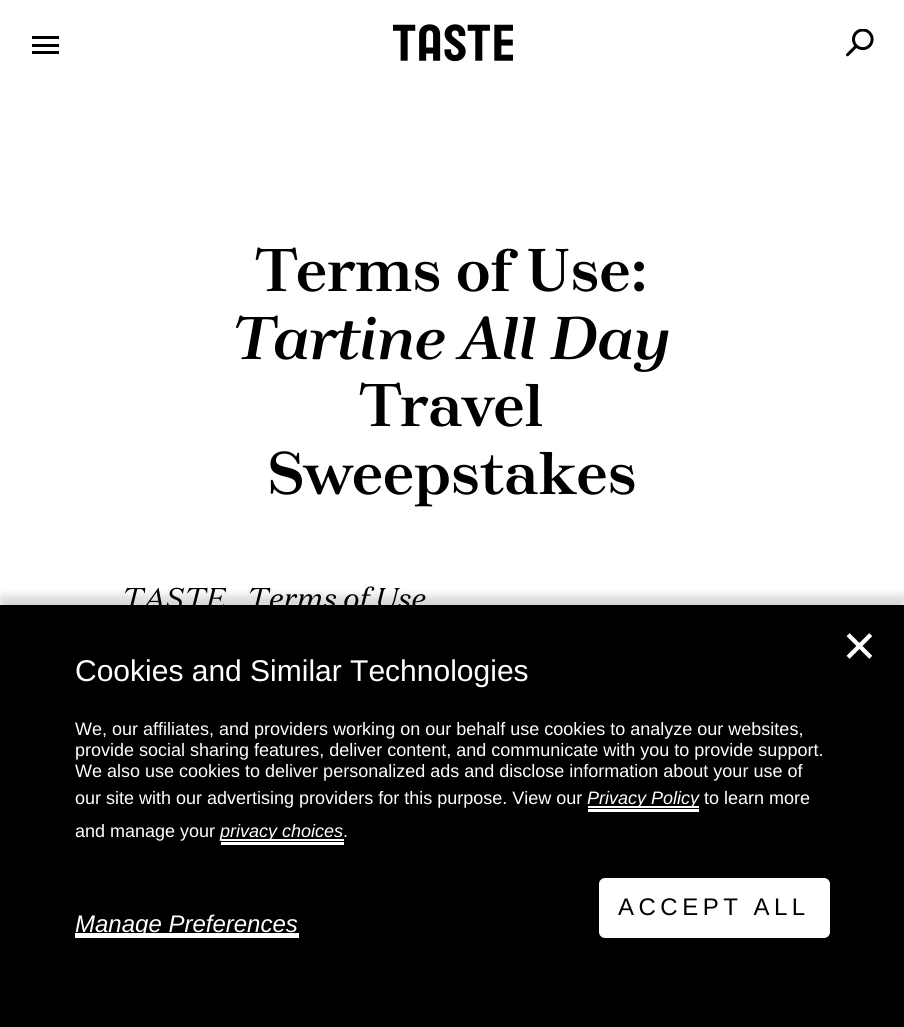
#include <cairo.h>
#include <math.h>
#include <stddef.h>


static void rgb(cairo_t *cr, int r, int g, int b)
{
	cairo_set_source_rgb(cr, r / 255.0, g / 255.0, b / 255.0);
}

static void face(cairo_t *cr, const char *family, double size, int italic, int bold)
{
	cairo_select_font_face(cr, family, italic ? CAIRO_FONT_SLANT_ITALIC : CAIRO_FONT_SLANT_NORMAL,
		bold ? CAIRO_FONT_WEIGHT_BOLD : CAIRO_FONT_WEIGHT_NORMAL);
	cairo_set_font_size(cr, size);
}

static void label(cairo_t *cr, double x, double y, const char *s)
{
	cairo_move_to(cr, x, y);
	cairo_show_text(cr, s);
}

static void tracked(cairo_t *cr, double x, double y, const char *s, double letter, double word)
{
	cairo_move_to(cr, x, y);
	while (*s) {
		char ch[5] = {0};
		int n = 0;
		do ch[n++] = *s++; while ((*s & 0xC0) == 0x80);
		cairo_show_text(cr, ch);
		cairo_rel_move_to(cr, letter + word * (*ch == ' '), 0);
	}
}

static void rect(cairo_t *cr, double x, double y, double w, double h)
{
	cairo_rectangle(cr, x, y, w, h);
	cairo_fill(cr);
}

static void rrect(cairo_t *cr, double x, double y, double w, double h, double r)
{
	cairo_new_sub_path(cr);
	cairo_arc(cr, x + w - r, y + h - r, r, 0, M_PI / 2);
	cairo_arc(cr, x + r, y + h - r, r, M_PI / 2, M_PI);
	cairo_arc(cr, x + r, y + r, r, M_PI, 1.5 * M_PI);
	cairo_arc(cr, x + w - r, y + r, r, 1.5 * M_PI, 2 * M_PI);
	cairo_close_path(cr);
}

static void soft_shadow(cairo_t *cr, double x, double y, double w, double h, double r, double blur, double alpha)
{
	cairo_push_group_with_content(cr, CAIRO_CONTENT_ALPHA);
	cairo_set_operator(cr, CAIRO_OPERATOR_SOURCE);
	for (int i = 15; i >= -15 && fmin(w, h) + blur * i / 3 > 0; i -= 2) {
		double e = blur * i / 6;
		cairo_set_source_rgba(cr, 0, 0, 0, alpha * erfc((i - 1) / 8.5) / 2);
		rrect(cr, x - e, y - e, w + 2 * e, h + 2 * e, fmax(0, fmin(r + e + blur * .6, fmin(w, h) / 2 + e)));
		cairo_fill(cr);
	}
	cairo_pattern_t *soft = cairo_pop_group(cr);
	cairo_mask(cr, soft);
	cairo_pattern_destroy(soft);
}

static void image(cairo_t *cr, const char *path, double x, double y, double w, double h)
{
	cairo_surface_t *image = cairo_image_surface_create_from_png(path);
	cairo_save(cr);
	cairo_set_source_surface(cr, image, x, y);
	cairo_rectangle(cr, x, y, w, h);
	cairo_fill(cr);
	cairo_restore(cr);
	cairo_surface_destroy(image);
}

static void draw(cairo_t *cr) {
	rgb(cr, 255, 255, 255);
	cairo_paint(cr);
	rgb(cr, 0, 0, 0);
	rect(cr, 32, 44, 27, 3);
	rect(cr, 32, 36, 27, 3);
	rect(cr, 32, 51, 27, 3);
	image(cr, "image0.png", 393, 24, 120, 38);
	image(cr, "image1.png", 846, 29, 28, 28);
	face(cr, "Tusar", 60, 0, 1);
	label(cr, 257, 291, "Terms of Use:");
	face(cr, "Tusar", 60, 1, 1);
	label(cr, 234, 359, "Tartine All Day");
	face(cr, "Tusar", 60, 0, 1);
	label(cr, 361, 426, "Travel");
	label(cr, 267, 494, "Sweepstakes");
	face(cr, "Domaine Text", 30, 1, 0);
	label(cr, 120, 609, "TASTE");
	label(cr, 245, 609, "Terms of Use");
	rgb(cr, 0, 0, 0);
	soft_shadow(cr, 0, 596, 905, 423, 0, 4.5, 0.16);
	rgb(cr, 0, 0, 0);
	rect(cr, 0, 605, 904, 422);
	face(cr, "DejaVu Sans", 44, 0, 0);
	rgb(cr, 255, 255, 255);
	label(cr, 841, 662, "✕");
	face(cr, "Liberation Sans", 30, 0, 0);
	label(cr, 75, 681, "Cookies and Similar Technologies");
	face(cr, "Liberation Sans", 18, 0, 0);
	label(cr, 75, 735, "We, our affiliates, and providers working on our behalf use cookies to analyze our websites,");
	label(cr, 75, 756, "provide social sharing features, deliver content, and communicate with you to provide support.");
	label(cr, 75, 777, "We also use cookies to deliver personalized ads and disclose information about your use of");
	label(cr, 75, 804, "our site with our advertising providers for this purpose. View our");
	rect(cr, 588, 806, 111, 2);
	face(cr, "Liberation Sans", 18, 1, 0);
	label(cr, 587, 804, "Privacy Policy");
	rect(cr, 588, 809, 111, 3);
	face(cr, "Liberation Sans", 18, 0, 0);
	label(cr, 704, 804, "to learn more");
	label(cr, 75, 837, "and manage your");
	rect(cr, 221, 839, 123, 2);
	face(cr, "Liberation Sans", 18, 1, 0);
	label(cr, 220, 837, "privacy choices");
	rect(cr, 221, 842, 123, 3);
	face(cr, "Liberation Sans", 18, 0, 0);
	label(cr, 343, 837, ".");
	rrect(cr, 600.5, 879.5, 228, 57, 4.5);
	cairo_fill_preserve(cr);
	cairo_set_line_width(cr, 3);
	cairo_stroke(cr);
	face(cr, "Liberation Sans", 24, 0, 0);
	rgb(cr, 0, 0, 0);
	tracked(cr, 618, 915, "ACCEPT ALL", 4.5, 0);
	rgb(cr, 255, 255, 255);
	rect(cr, 75, 933, 224, 5);
	face(cr, "Liberation Sans", 24, 1, 0);
	label(cr, 75, 932, "Manage Preferences");
}

int main(void) {
	cairo_surface_t *surface = cairo_image_surface_create(CAIRO_FORMAT_RGB24, 904, 1027);
	cairo_t *cr = cairo_create(surface);
	cairo_font_options_t *options = cairo_font_options_create();
	cairo_font_options_set_hint_metrics(options, CAIRO_HINT_METRICS_OFF);
	cairo_font_options_set_hint_style(options, CAIRO_HINT_STYLE_NONE);
	cairo_set_font_options(cr, options);
	cairo_set_miter_limit(cr, 4);
	draw(cr);
	cairo_surface_write_to_png(surface, "render.png");
	cairo_font_options_destroy(options);
	cairo_destroy(cr);
	cairo_surface_destroy(surface);
	return 0;
}
